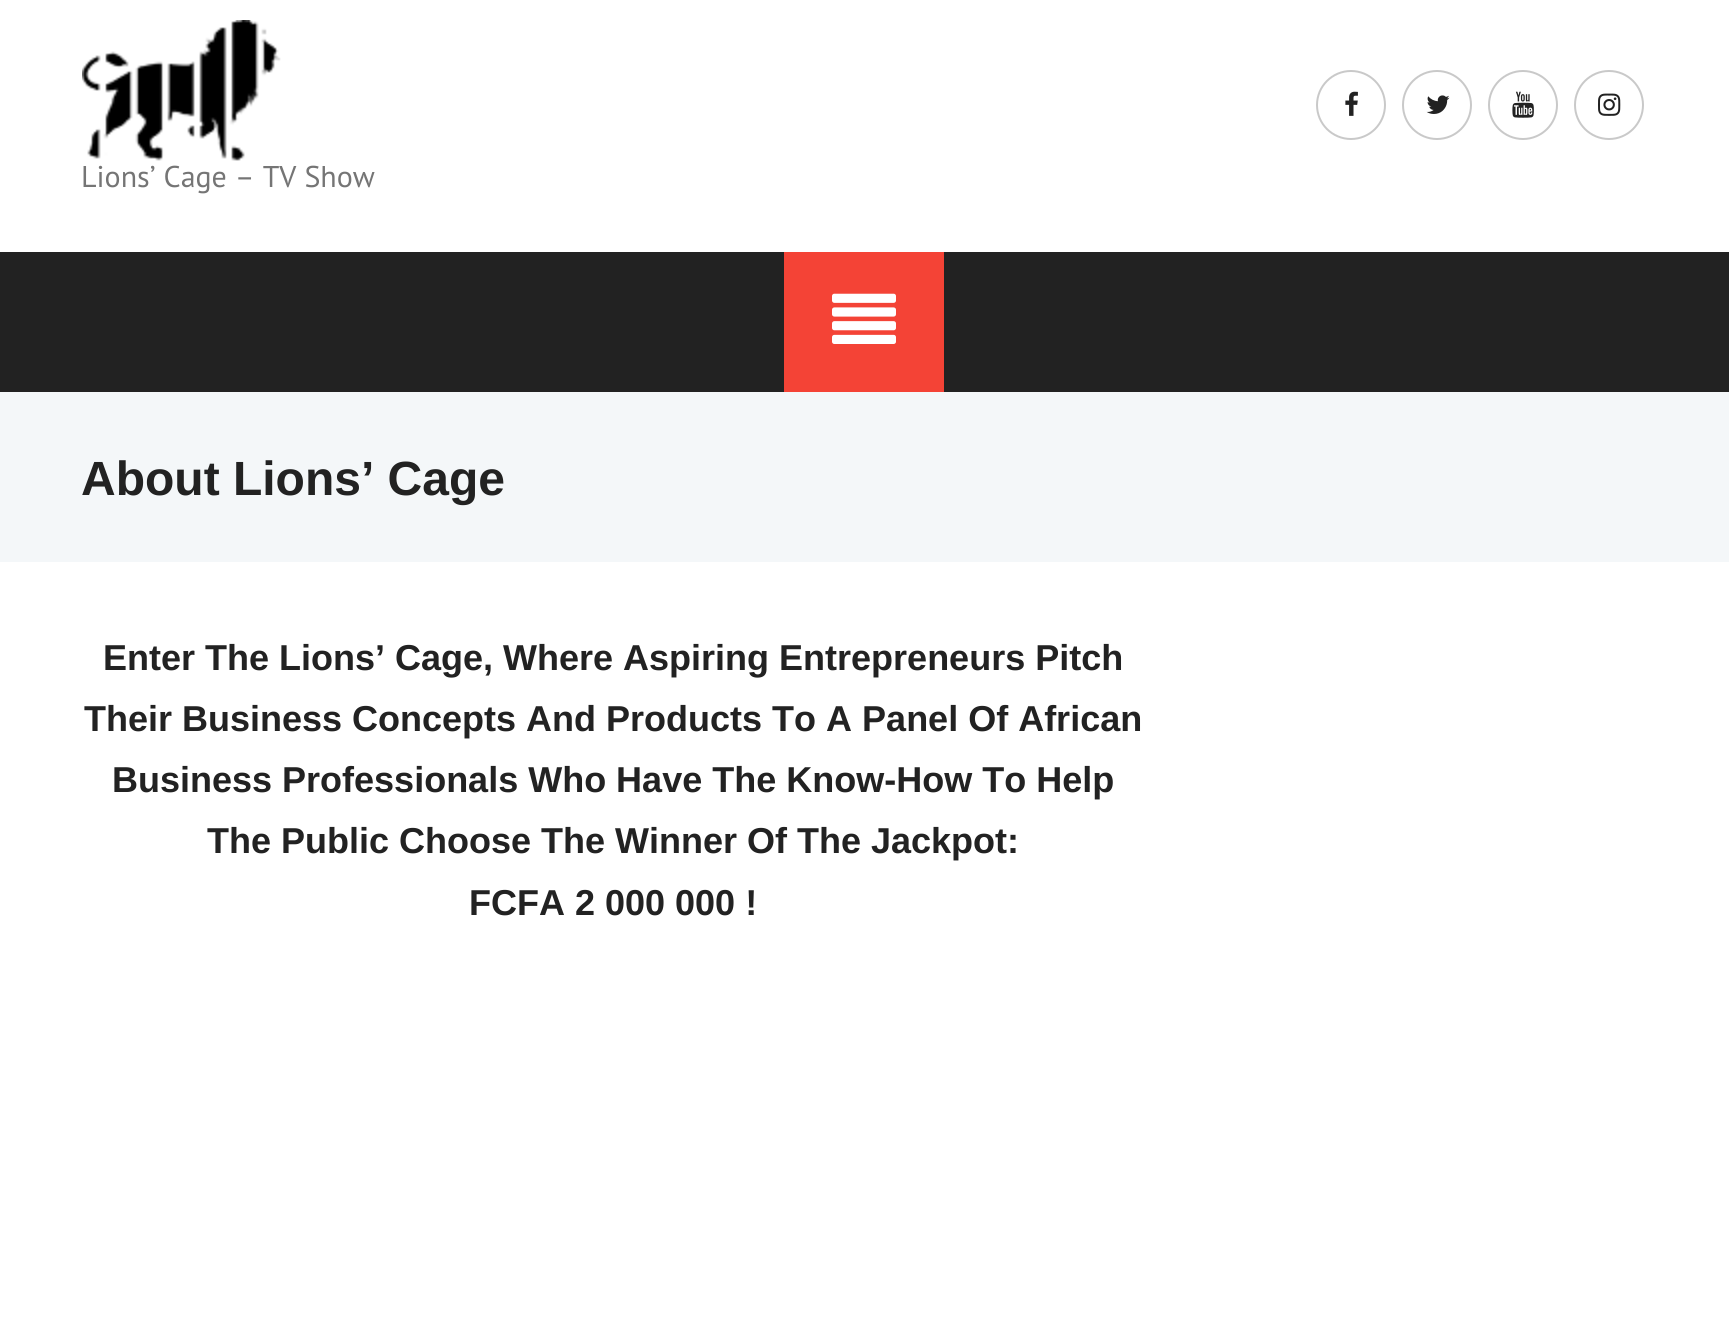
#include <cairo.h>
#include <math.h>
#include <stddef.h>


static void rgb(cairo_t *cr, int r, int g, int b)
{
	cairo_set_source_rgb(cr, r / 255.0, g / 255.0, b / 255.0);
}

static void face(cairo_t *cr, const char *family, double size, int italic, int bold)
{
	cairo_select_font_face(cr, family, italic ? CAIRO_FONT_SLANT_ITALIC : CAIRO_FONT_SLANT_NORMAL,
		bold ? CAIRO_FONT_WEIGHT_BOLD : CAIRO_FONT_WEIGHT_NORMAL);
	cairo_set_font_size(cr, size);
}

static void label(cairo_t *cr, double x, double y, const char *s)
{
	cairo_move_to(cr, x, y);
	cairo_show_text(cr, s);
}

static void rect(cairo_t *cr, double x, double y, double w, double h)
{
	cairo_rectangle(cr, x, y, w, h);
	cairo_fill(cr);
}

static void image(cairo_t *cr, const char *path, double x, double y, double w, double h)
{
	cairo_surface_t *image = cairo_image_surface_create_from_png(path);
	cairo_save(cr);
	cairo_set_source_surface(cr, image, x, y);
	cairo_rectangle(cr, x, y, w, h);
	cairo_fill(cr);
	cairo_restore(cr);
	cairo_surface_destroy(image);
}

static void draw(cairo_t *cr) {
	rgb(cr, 255, 255, 255);
	cairo_paint(cr);
	cairo_arc(cr, 1351, 105, 34, 0, 2 * M_PI);
	rgb(cr, 201, 201, 201);
	cairo_stroke(cr);
	image(cr, "image0.png", 1345, 91, 13, 25);
	cairo_arc(cr, 1437, 105, 34, 0, 2 * M_PI);
	cairo_stroke(cr);
	image(cr, "image1.png", 1426, 95, 24, 19);
	cairo_arc(cr, 1523, 105, 34, 0, 2 * M_PI);
	cairo_stroke(cr);
	image(cr, "image2.png", 1512, 91, 22, 27);
	cairo_arc(cr, 1609, 105, 34, 0, 2 * M_PI);
	cairo_stroke(cr);
	image(cr, "image3.png", 1598, 93, 23, 23);
	image(cr, "image4.png", 82, 20, 199, 141);
	face(cr, "PT Sans", 30, 0, 0);
	rgb(cr, 117, 117, 117);
	label(cr, 81, 187, "Lions’ Cage – TV Show");
	rgb(cr, 34, 34, 34);
	rect(cr, 0, 252, 1729, 140);
	rgb(cr, 244, 67, 54);
	rect(cr, 784, 252, 160, 140);
	image(cr, "image5.png", 832, 293, 64, 51);
	rgb(cr, 244, 247, 249);
	rect(cr, 0, 392, 1729, 170);
	face(cr, "Arimo", 48, 0, 1);
	rgb(cr, 34, 34, 34);
	label(cr, 81, 495, "About Lions’ Cage");
	face(cr, "Arimo", 36, 0, 1);
	label(cr, 103, 670, "Enter The Lions’ Cage, Where Aspiring Entrepreneurs Pitch");
	label(cr, 84, 731, "Their Business Concepts And Products To A Panel Of African");
	label(cr, 112, 792, "Business Professionals Who Have The Know-How To Help");
	label(cr, 207, 853, "The Public Choose The Winner Of The Jackpot:");
	label(cr, 469, 915, "FCFA 2 000 000 !");
}

int main(void) {
	cairo_surface_t *surface = cairo_image_surface_create(CAIRO_FORMAT_RGB24, 1729, 1336);
	cairo_t *cr = cairo_create(surface);
	cairo_font_options_t *options = cairo_font_options_create();
	cairo_font_options_set_hint_metrics(options, CAIRO_HINT_METRICS_OFF);
	cairo_font_options_set_hint_style(options, CAIRO_HINT_STYLE_NONE);
	cairo_set_font_options(cr, options);
	cairo_set_miter_limit(cr, 4);
	draw(cr);
	cairo_surface_write_to_png(surface, "render.png");
	cairo_font_options_destroy(options);
	cairo_destroy(cr);
	cairo_surface_destroy(surface);
	return 0;
}
